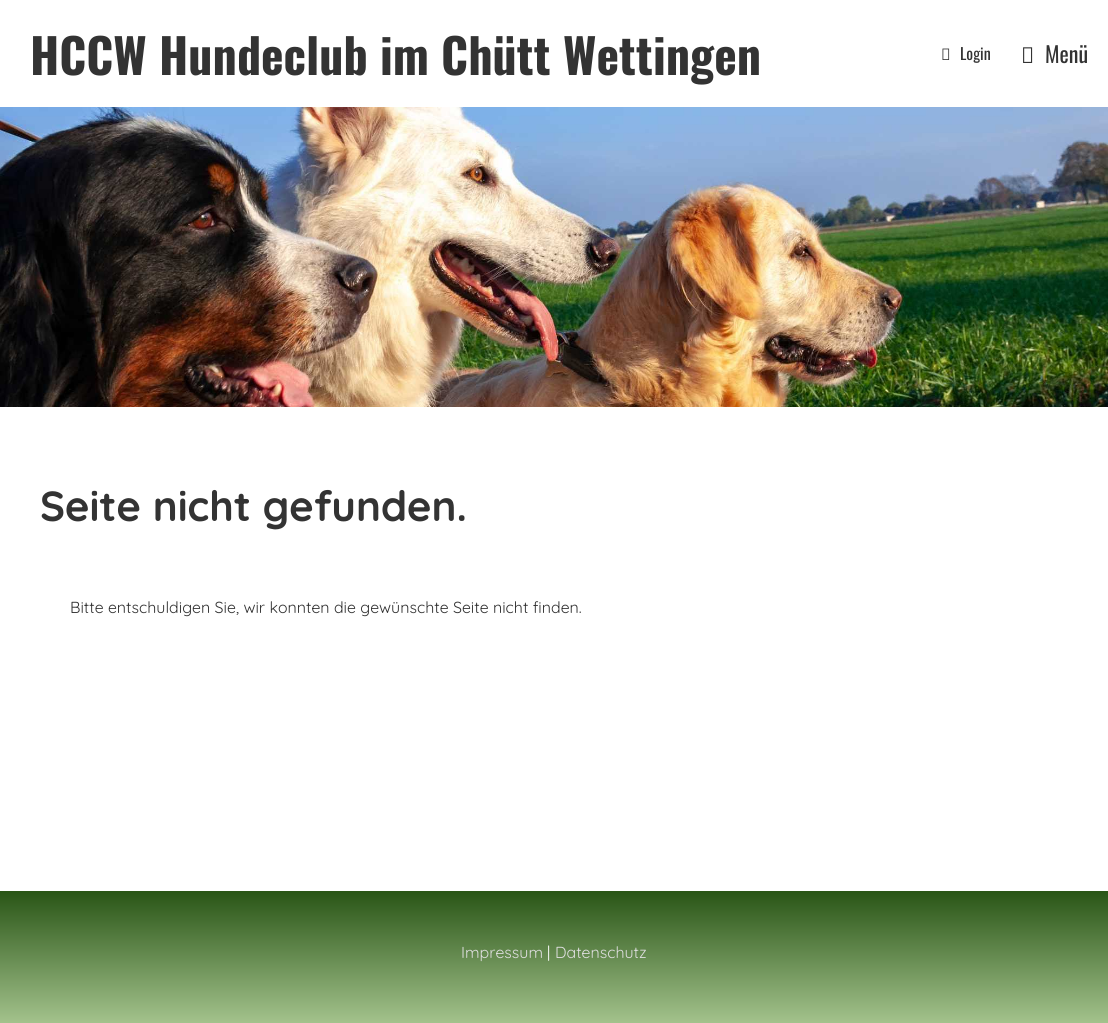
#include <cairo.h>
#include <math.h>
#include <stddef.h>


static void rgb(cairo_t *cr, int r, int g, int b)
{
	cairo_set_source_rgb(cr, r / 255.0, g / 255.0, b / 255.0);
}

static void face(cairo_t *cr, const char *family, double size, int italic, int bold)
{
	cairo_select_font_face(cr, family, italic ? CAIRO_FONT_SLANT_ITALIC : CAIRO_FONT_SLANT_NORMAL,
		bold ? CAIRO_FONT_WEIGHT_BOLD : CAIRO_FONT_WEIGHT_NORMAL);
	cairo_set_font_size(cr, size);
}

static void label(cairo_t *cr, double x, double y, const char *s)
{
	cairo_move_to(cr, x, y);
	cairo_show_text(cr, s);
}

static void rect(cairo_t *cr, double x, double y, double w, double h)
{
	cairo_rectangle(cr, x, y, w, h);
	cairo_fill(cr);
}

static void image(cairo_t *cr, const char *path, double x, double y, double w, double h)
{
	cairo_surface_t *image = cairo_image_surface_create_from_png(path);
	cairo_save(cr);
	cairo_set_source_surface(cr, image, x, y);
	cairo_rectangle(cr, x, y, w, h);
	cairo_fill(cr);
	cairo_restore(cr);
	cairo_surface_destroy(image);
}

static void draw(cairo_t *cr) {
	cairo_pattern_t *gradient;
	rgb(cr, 255, 255, 255);
	cairo_paint(cr);
	face(cr, "Oswald", 48, 0, 1);
	rgb(cr, 51, 51, 51);
	label(cr, 30, 75, "HCCW Hundeclub im Chütt Wettingen");
	image(cr, "image0.png", 942, 48, 8, 12);
	face(cr, "Oswald", 16, 0, 0);
	label(cr, 960, 60, "Login");
	image(cr, "image1.png", 1023, 47, 10, 16);
	face(cr, "Oswald", 22, 0, 0);
	label(cr, 1045, 63, "Menü");
	image(cr, "image2.png", 0, 107, 1108, 300);
	face(cr, "Quicksand Light", 42, 0, 0);
	label(cr, 40, 521, "Seite nicht gefunden.");
	face(cr, "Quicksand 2 Light", 16, 0, 0);
	label(cr, 70, 613, "Bitte entschuldigen Sie, wir konnten die gewünschte Seite nicht finden.");
	gradient = cairo_pattern_create_linear(554, 891, 554, 1023);
	cairo_pattern_add_color_stop_rgba(gradient, 0, 0.161, 0.333, 0.086, 1);
	cairo_pattern_add_color_stop_rgba(gradient, 1, 0.639, 0.761, 0.549, 1);
	cairo_set_source(cr, gradient);
	cairo_pattern_destroy(gradient);
	rect(cr, 0, 891, 1108, 132);
	rgb(cr, 221, 221, 221);
	label(cr, 461, 958, "Impressum");
	rgb(cr, 255, 255, 255);
	label(cr, 547, 958, "|");
	rgb(cr, 221, 221, 221);
	label(cr, 555, 958, "Datenschutz");
}

int main(void) {
	cairo_surface_t *surface = cairo_image_surface_create(CAIRO_FORMAT_RGB24, 1108, 1023);
	cairo_t *cr = cairo_create(surface);
	cairo_font_options_t *options = cairo_font_options_create();
	cairo_font_options_set_hint_metrics(options, CAIRO_HINT_METRICS_OFF);
	cairo_font_options_set_hint_style(options, CAIRO_HINT_STYLE_NONE);
	cairo_set_font_options(cr, options);
	cairo_set_miter_limit(cr, 4);
	draw(cr);
	cairo_surface_write_to_png(surface, "render.png");
	cairo_font_options_destroy(options);
	cairo_destroy(cr);
	cairo_surface_destroy(surface);
	return 0;
}
